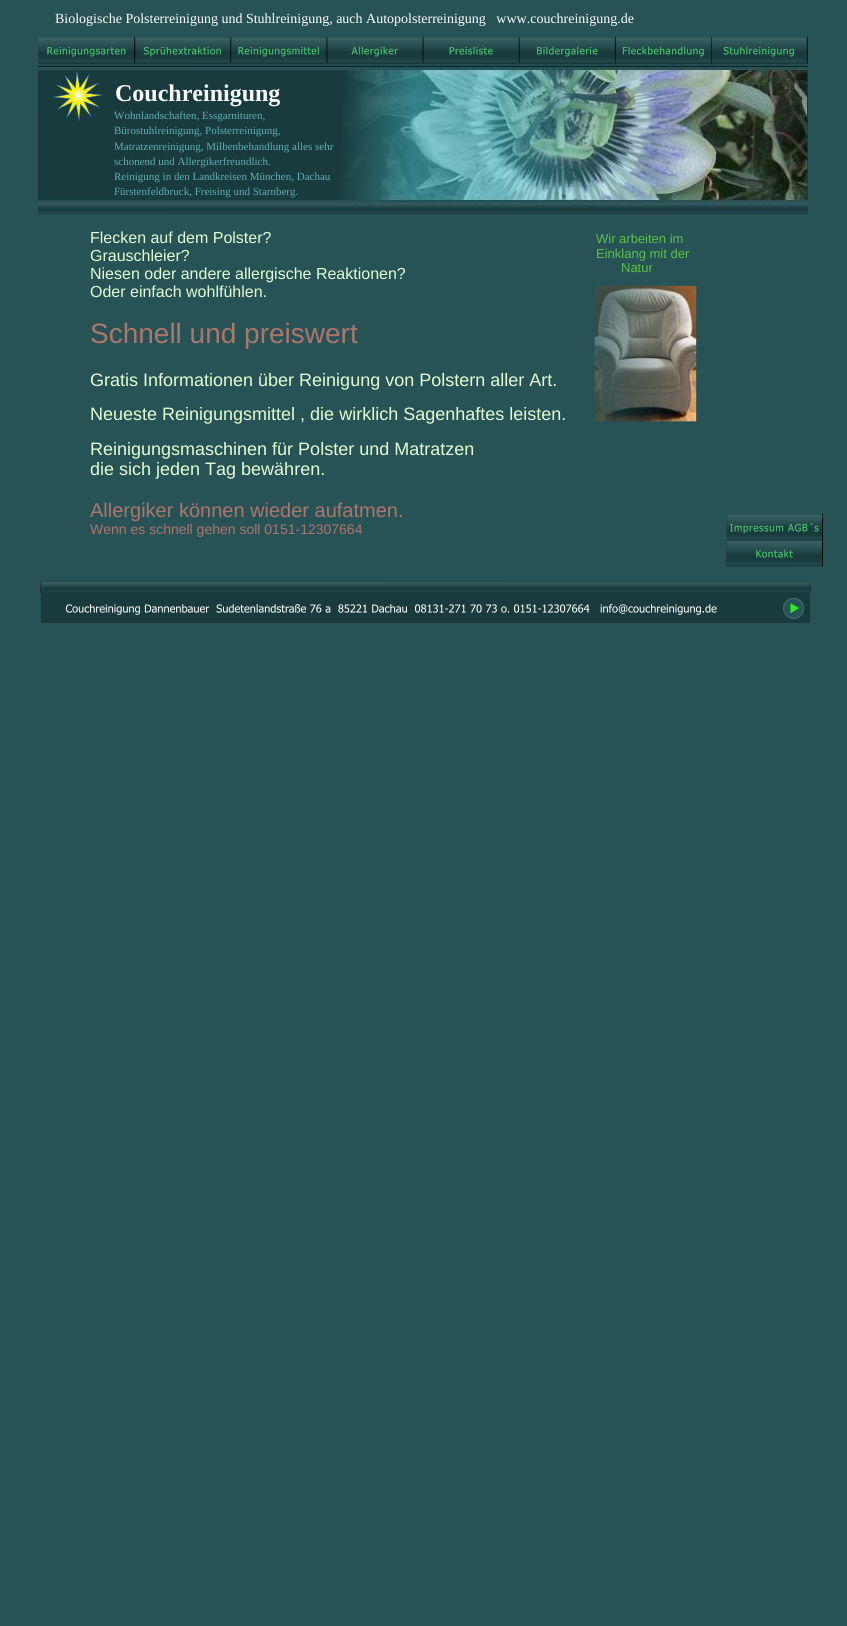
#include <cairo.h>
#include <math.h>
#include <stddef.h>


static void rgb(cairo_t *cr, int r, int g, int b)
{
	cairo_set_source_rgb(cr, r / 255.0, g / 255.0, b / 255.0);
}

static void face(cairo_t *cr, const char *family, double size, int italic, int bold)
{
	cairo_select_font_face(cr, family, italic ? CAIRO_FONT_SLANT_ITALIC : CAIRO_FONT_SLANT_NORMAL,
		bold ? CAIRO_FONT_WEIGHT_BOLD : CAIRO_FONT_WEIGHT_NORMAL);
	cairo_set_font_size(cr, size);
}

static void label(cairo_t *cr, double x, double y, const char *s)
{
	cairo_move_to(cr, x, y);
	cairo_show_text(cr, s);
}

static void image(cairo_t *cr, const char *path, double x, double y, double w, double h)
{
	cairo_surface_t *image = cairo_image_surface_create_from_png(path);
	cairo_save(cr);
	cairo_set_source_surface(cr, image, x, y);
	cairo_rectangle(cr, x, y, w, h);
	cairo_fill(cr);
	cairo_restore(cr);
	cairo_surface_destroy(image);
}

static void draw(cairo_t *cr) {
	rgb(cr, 40, 83, 86);
	cairo_paint(cr);
	face(cr, "Liberation Serif", 14, 0, 0);
	rgb(cr, 252, 255, 255);
	label(cr, 55, 23, "Biologische Polsterreinigung und Stuhlreinigung, auch Autopolsterreinigung   www.couchreinigung.de");
	image(cr, "image0.png", 38, 37, 770, 177);
	image(cr, "image1.png", 39, 37, 97, 27);
	image(cr, "image2.png", 135, 37, 97, 27);
	image(cr, "image3.png", 231, 37, 97, 27);
	image(cr, "image4.png", 327, 37, 97, 27);
	image(cr, "image5.png", 423, 37, 97, 27);
	image(cr, "image6.png", 519, 37, 97, 27);
	image(cr, "image7.png", 615, 37, 97, 27);
	image(cr, "image8.png", 711, 37, 97, 27);
	image(cr, "image9.png", 52, 70, 52, 52);
	face(cr, "Liberation Serif", 24, 0, 1);
	label(cr, 115, 101, "Couchreinigung");
	face(cr, "Liberation Serif", 11, 0, 0);
	rgb(cr, 92, 175, 181);
	label(cr, 114, 119, "Wohnlandschaften, Essgarnituren,");
	label(cr, 114, 134, "Bürostuhlreinigung, Polsterreinigung,");
	label(cr, 114, 150, "Matratzenreinigung, Milbenbehandlung alles sehr");
	label(cr, 114, 165, "schonend und Allergikerfreundlich.");
	label(cr, 114, 180, "Reinigung in den Landkreisen München, Dachau");
	label(cr, 114, 195, "Fürstenfeldbruck, Freising und Starnberg.");
	face(cr, "Liberation Sans", 16, 0, 0);
	rgb(cr, 225, 255, 210);
	label(cr, 90, 243, "Flecken auf dem Polster?");
	label(cr, 90, 261, "Grauschleier?");
	label(cr, 90, 279, "Niesen oder andere allergische Reaktionen?");
	label(cr, 90, 297, "Oder einfach wohlfühlen.");
	face(cr, "Liberation Sans", 28, 0, 0);
	rgb(cr, 173, 118, 107);
	label(cr, 90, 343, "Schnell und preiswert");
	face(cr, "Liberation Sans", 18, 0, 0);
	rgb(cr, 225, 255, 210);
	label(cr, 90, 386, "Gratis Informationen über Reinigung von Polstern aller Art.");
	label(cr, 90, 420, "Neueste Reinigungsmittel , die wirklich Sagenhaftes leisten.");
	label(cr, 90, 455, "Reinigungsmaschinen für Polster und Matratzen");
	label(cr, 90, 475, "die sich jeden Tag bewähren.");
	face(cr, "Liberation Sans", 20, 0, 0);
	rgb(cr, 173, 118, 107);
	label(cr, 90, 517, "Allergiker können wieder aufatmen.");
	face(cr, "Liberation Sans", 14, 0, 0);
	label(cr, 90, 534, "Wenn es schnell gehen soll 0151-12307664");
	face(cr, "Liberation Sans", 13, 0, 0);
	rgb(cr, 90, 193, 72);
	label(cr, 596, 243, "Wir arbeiten im");
	label(cr, 596, 258, "Einklang mit der");
	label(cr, 621, 272, "Natur");
	image(cr, "image10.png", 594, 285, 103, 137);
	image(cr, "image12.png", 726, 540, 97, 27);
	image(cr, "image11.png", 726, 514, 97, 27);
	image(cr, "image13.png", 40, 581, 771, 42);
	image(cr, "image14.png", 783, 598, 21, 21);
}

int main(void) {
	cairo_surface_t *surface = cairo_image_surface_create(CAIRO_FORMAT_RGB24, 847, 1626);
	cairo_t *cr = cairo_create(surface);
	cairo_font_options_t *options = cairo_font_options_create();
	cairo_font_options_set_hint_metrics(options, CAIRO_HINT_METRICS_OFF);
	cairo_font_options_set_hint_style(options, CAIRO_HINT_STYLE_NONE);
	cairo_set_font_options(cr, options);
	cairo_set_miter_limit(cr, 4);
	draw(cr);
	cairo_surface_write_to_png(surface, "render.png");
	cairo_font_options_destroy(options);
	cairo_destroy(cr);
	cairo_surface_destroy(surface);
	return 0;
}
